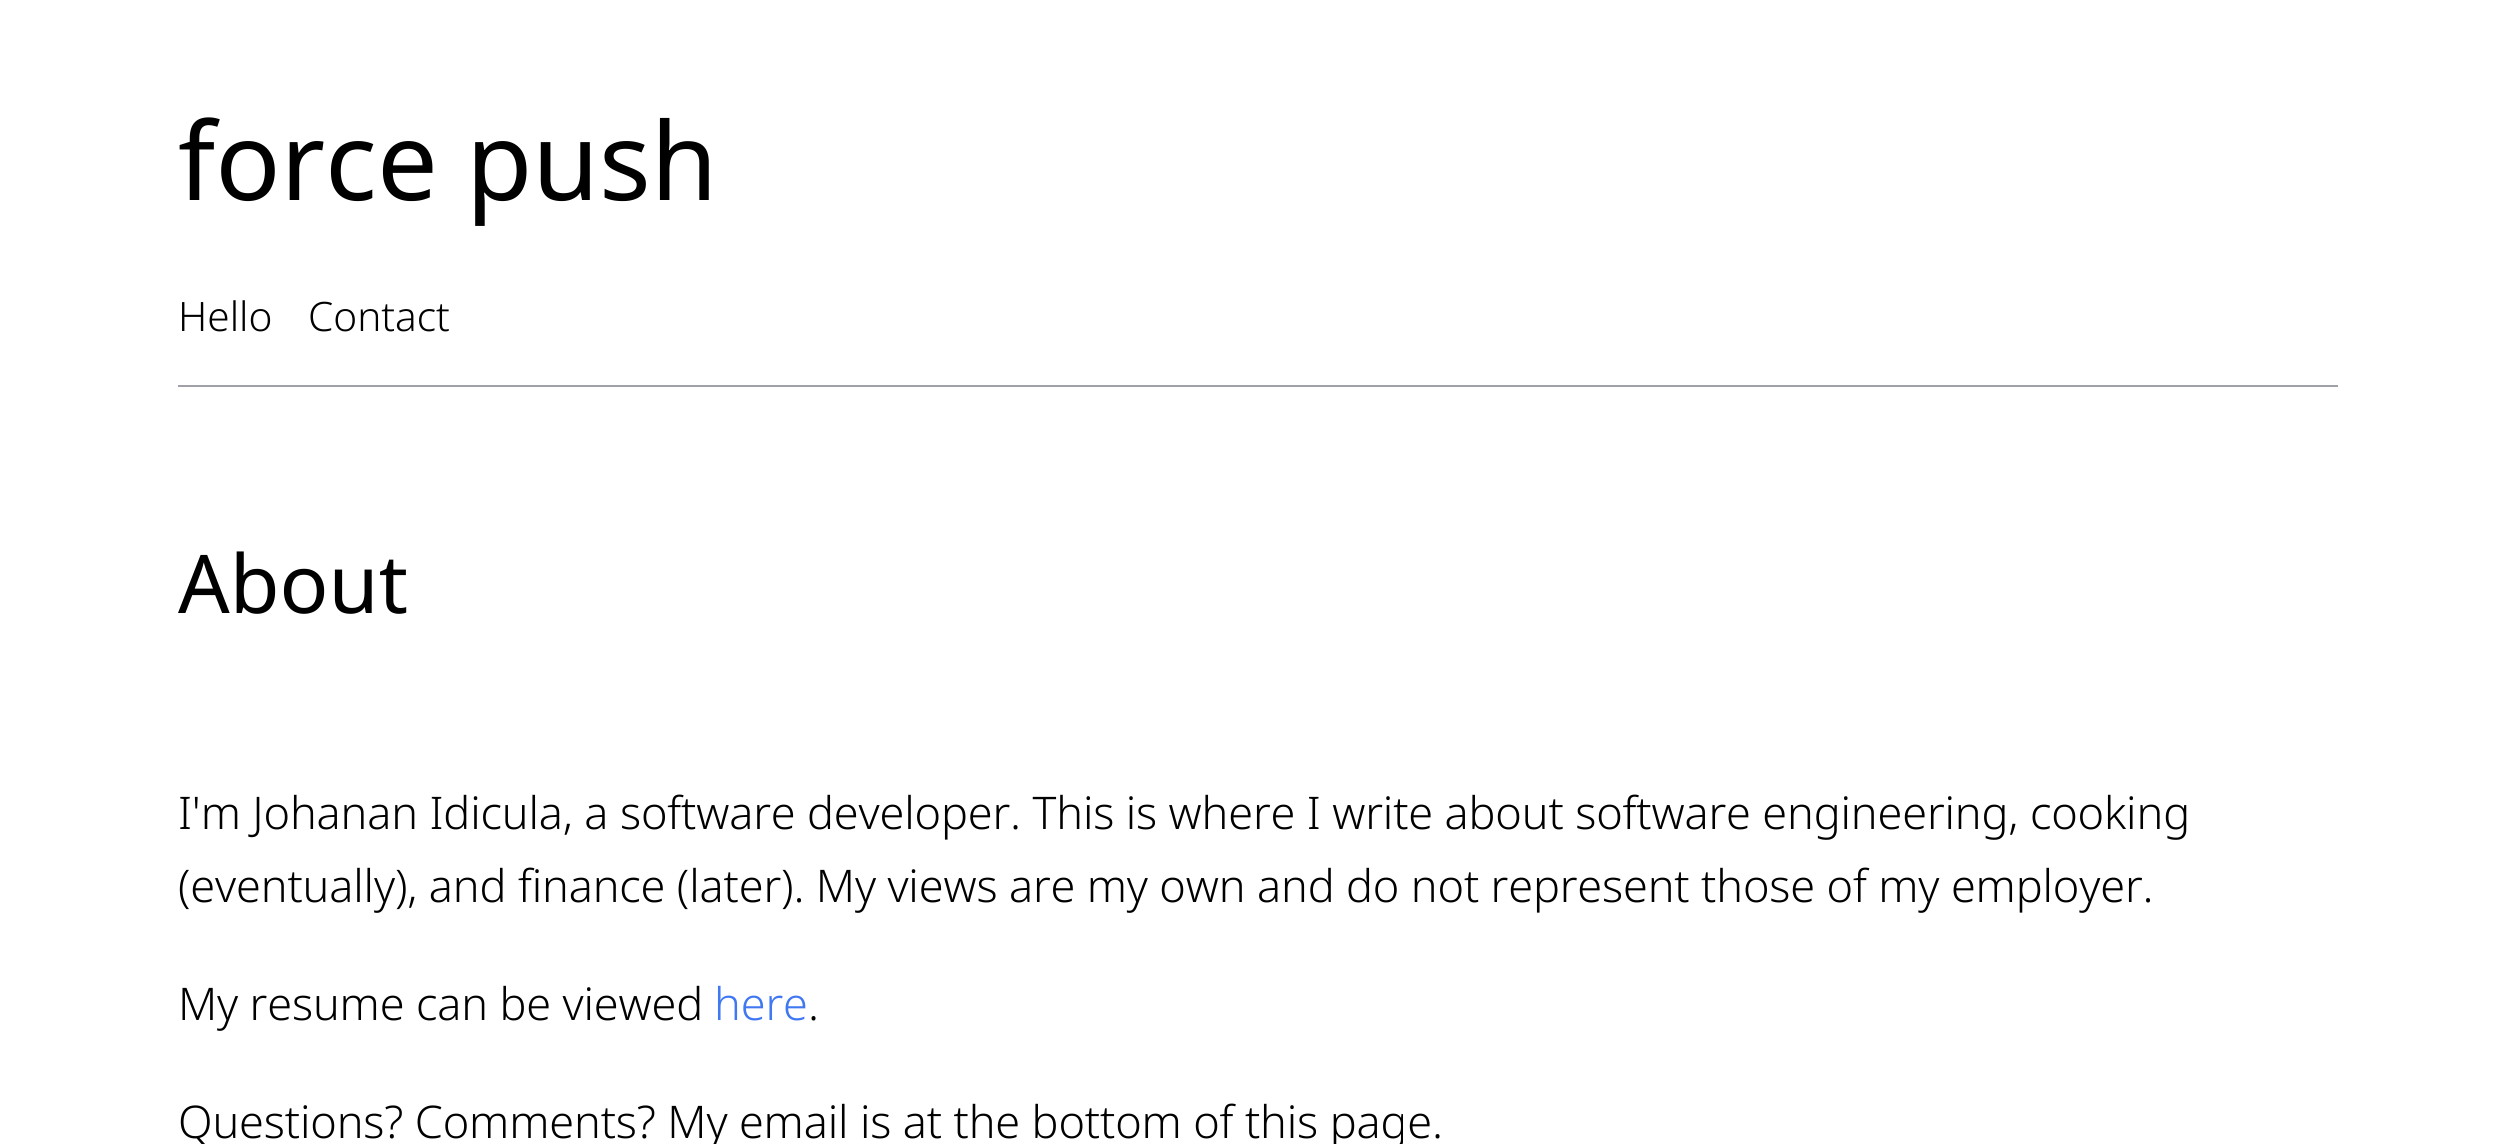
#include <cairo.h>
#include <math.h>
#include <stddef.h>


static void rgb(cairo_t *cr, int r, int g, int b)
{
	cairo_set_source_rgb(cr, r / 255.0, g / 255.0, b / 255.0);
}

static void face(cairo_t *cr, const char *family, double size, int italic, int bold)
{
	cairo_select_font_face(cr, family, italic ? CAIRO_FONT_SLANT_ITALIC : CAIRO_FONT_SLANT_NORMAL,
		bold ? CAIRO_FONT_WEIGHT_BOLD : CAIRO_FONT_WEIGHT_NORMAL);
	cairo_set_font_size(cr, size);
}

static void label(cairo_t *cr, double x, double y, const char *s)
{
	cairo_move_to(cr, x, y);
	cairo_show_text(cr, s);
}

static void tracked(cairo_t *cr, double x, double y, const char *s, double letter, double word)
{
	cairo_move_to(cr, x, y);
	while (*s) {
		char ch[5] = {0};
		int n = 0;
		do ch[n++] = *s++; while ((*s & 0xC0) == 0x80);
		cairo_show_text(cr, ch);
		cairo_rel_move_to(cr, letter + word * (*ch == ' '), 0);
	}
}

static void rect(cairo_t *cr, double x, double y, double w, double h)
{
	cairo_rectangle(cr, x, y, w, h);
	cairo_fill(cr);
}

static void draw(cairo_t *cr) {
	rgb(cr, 255, 255, 255);
	cairo_paint(cr);
	face(cr, "Noto Sans", 108, 0, 0);
	rgb(cr, 0, 0, 0);
	label(cr, 178, 200, "force push");
	rgb(cr, 160, 161, 168);
	rect(cr, 178, 385, 2160, 2);
	face(cr, "Noto Sans Light", 40.5, 0, 0);
	rgb(cr, 0, 0, 0);
	label(cr, 178, 331, "Hello");
	label(cr, 308, 331, "Contact");
	face(cr, "Noto Sans", 81, 0, 0);
	label(cr, 178, 613, "About");
	face(cr, "Noto Sans Light", 45, 0, 0);
	tracked(cr, 178, 829, "I'm Johanan Idicula, a software developer. This is where I write about software engineering, cooking", -0.14, 0);
	tracked(cr, 178, 902, "(eventually), and finance (later). My views are my own and do not represent those of my employer.", -0.14, 0);
	tracked(cr, 178, 1020, "My resume can be viewed", -0.14, 0);
	rgb(cr, 64, 120, 242);
	tracked(cr, 714, 1020, "here", -0.14, 0);
	rgb(cr, 0, 0, 0);
	tracked(cr, 808, 1020, ".", -0.14, 0);
	tracked(cr, 178, 1138, "Questions? Comments? My email is at the bottom of this page.", -0.14, 0);
}

int main(void) {
	cairo_surface_t *surface = cairo_image_surface_create(CAIRO_FORMAT_RGB24, 2515, 1144);
	cairo_t *cr = cairo_create(surface);
	cairo_font_options_t *options = cairo_font_options_create();
	cairo_font_options_set_hint_metrics(options, CAIRO_HINT_METRICS_OFF);
	cairo_font_options_set_hint_style(options, CAIRO_HINT_STYLE_NONE);
	cairo_set_font_options(cr, options);
	cairo_set_miter_limit(cr, 4);
	draw(cr);
	cairo_surface_write_to_png(surface, "render.png");
	cairo_font_options_destroy(options);
	cairo_destroy(cr);
	cairo_surface_destroy(surface);
	return 0;
}
